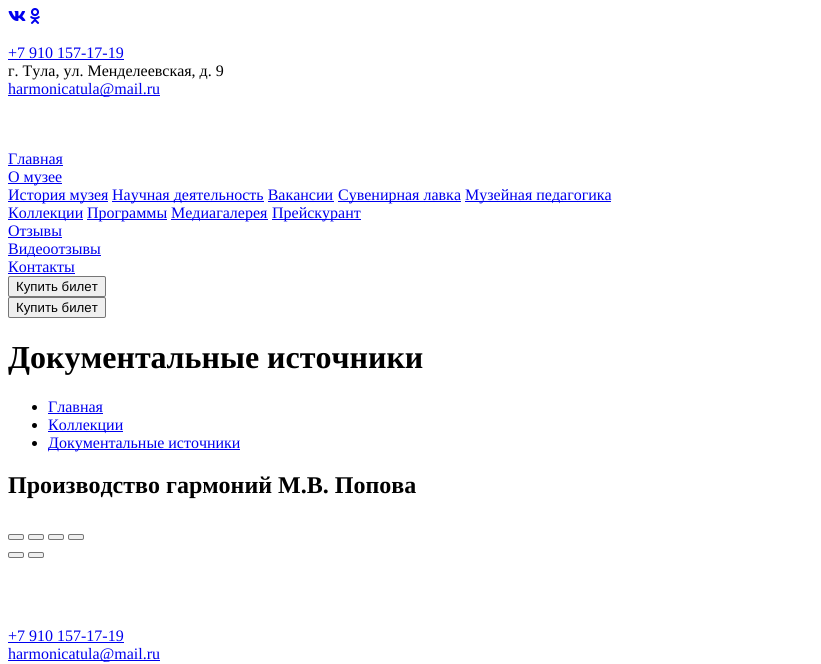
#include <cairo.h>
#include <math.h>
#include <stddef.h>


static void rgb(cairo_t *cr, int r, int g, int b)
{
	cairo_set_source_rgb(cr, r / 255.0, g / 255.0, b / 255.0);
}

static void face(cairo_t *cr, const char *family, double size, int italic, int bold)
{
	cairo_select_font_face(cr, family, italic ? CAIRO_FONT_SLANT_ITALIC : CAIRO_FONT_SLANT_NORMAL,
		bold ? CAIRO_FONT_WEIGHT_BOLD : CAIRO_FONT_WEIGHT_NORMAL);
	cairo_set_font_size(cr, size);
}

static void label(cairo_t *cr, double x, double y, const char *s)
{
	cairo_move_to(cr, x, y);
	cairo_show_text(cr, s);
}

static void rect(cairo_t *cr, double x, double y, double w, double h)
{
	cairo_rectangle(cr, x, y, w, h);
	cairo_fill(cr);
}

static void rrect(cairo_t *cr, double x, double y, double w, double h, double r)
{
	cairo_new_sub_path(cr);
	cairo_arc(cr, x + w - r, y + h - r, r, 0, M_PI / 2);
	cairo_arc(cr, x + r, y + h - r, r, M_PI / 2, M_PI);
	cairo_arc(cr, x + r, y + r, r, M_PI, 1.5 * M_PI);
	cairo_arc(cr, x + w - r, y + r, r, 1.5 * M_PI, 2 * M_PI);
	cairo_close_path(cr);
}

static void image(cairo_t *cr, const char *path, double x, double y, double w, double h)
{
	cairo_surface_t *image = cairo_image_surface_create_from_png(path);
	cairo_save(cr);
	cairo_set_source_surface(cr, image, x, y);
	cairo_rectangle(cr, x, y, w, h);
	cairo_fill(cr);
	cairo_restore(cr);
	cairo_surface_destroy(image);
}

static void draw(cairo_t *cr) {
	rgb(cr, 255, 255, 255);
	cairo_paint(cr);
	image(cr, "image0.png", 8, 11, 18, 10);
	image(cr, "image1.png", 30, 8, 10, 16);
	face(cr, "Liberation Serif", 16, 0, 0);
	rgb(cr, 0, 0, 238);
	label(cr, 8, 58, "+7 910 157-17-19");
	rect(cr, 8, 59, 116, 1);
	rgb(cr, 0, 0, 0);
	label(cr, 8, 76, "г. Тула, ул. Менделеевская, д. 9");
	rgb(cr, 0, 0, 238);
	rect(cr, 8, 95, 152, 1);
	label(cr, 8, 94, "harmonicatula@mail.ru");
	label(cr, 8, 164, "Главная");
	rect(cr, 8, 165, 55, 1);
	rect(cr, 8, 183, 54, 1);
	label(cr, 8, 182, "О музее");
	rect(cr, 8, 201, 100, 1);
	label(cr, 8, 200, "История музея");
	rect(cr, 112, 201, 152, 1);
	label(cr, 112, 200, "Научная деятельность Вакансии");
	rect(cr, 338, 201, 123, 1);
	label(cr, 338, 200, "Сувенирная лавка");
	rect(cr, 465, 201, 146, 1);
	label(cr, 465, 200, "Музейная педагогика");
	rect(cr, 268, 201, 66, 1);
	rect(cr, 8, 219, 75, 1);
	label(cr, 8, 218, "Коллекции");
	rect(cr, 87, 219, 80, 1);
	label(cr, 87, 218, "Программы");
	rect(cr, 171, 219, 97, 1);
	label(cr, 171, 218, "Медиагалерея");
	rect(cr, 272, 219, 89, 1);
	label(cr, 272, 218, "Прейскурант");
	label(cr, 8, 236, "Отзывы");
	rect(cr, 8, 237, 54, 1);
	rect(cr, 8, 255, 93, 1);
	label(cr, 8, 254, "Видеоотзывы");
	label(cr, 8, 272, "Контакты");
	rect(cr, 8, 273, 67, 1);
	rgb(cr, 239, 239, 239);
	rrect(cr, 8.5, 276.5, 97, 20, 1.5);
	cairo_fill_preserve(cr);
	rgb(cr, 118, 118, 118);
	cairo_set_line_width(cr, 1);
	cairo_stroke(cr);
	face(cr, "Liberation Sans", 13.25, 0, 0);
	rgb(cr, 0, 0, 0);
	label(cr, 16, 291, "Купить билет");
	rgb(cr, 239, 239, 239);
	rrect(cr, 8.5, 297.5, 97, 20, 1.5);
	cairo_fill_preserve(cr);
	rgb(cr, 118, 118, 118);
	cairo_stroke(cr);
	rgb(cr, 0, 0, 0);
	label(cr, 16, 312, "Купить билет");
	face(cr, "Liberation Serif", 32, 0, 1);
	label(cr, 8, 368, "Документальные источники");
	cairo_new_path(cr);
	cairo_arc(cr, 34.5, 407.5, 2.5, 0, 2 * M_PI);
	cairo_fill(cr);
	face(cr, "Liberation Serif", 16, 0, 0);
	rgb(cr, 0, 0, 238);
	label(cr, 48, 412, "Главная");
	rect(cr, 48, 413, 55, 1);
	rgb(cr, 0, 0, 0);
	cairo_new_path(cr);
	cairo_arc(cr, 34.5, 425.5, 2.5, 0, 2 * M_PI);
	cairo_fill(cr);
	rgb(cr, 0, 0, 238);
	rect(cr, 48, 431, 75, 1);
	label(cr, 48, 430, "Коллекции");
	rgb(cr, 0, 0, 0);
	cairo_new_path(cr);
	cairo_arc(cr, 34.5, 443.5, 2.5, 0, 2 * M_PI);
	cairo_fill(cr);
	rgb(cr, 0, 0, 238);
	rect(cr, 48, 449, 192, 1);
	label(cr, 48, 448, "Документальные источники");
	face(cr, "Liberation Serif", 24, 0, 1);
	rgb(cr, 0, 0, 0);
	label(cr, 8, 493, "Производство гармоний М.В. Попова");
	rgb(cr, 239, 239, 239);
	rrect(cr, 8.5, 534.5, 15, 5, 1.5);
	cairo_fill_preserve(cr);
	rgb(cr, 118, 118, 118);
	cairo_stroke(cr);
	rgb(cr, 239, 239, 239);
	rrect(cr, 28.5, 534.5, 15, 5, 1.5);
	cairo_fill_preserve(cr);
	rgb(cr, 118, 118, 118);
	cairo_stroke(cr);
	rgb(cr, 239, 239, 239);
	rrect(cr, 48.5, 534.5, 15, 5, 1.5);
	cairo_fill_preserve(cr);
	rgb(cr, 118, 118, 118);
	cairo_stroke(cr);
	rgb(cr, 239, 239, 239);
	rrect(cr, 68.5, 534.5, 15, 5, 1.5);
	cairo_fill_preserve(cr);
	rgb(cr, 118, 118, 118);
	cairo_stroke(cr);
	rgb(cr, 239, 239, 239);
	rrect(cr, 8.5, 552.5, 15, 5, 1.5);
	cairo_fill_preserve(cr);
	rgb(cr, 118, 118, 118);
	cairo_stroke(cr);
	rgb(cr, 239, 239, 239);
	rrect(cr, 28.5, 552.5, 15, 5, 1.5);
	cairo_fill_preserve(cr);
	rgb(cr, 118, 118, 118);
	cairo_stroke(cr);
	face(cr, "Liberation Serif", 16, 0, 0);
	rgb(cr, 0, 0, 238);
	label(cr, 8, 641, "+7 910 157-17-19");
	rect(cr, 8, 642, 116, 1);
	rect(cr, 8, 660, 152, 1);
	label(cr, 8, 659, "harmonicatula@mail.ru");
}

int main(void) {
	cairo_surface_t *surface = cairo_image_surface_create(CAIRO_FORMAT_RGB24, 821, 664);
	cairo_t *cr = cairo_create(surface);
	cairo_font_options_t *options = cairo_font_options_create();
	cairo_font_options_set_hint_metrics(options, CAIRO_HINT_METRICS_OFF);
	cairo_font_options_set_hint_style(options, CAIRO_HINT_STYLE_NONE);
	cairo_set_font_options(cr, options);
	cairo_set_miter_limit(cr, 4);
	draw(cr);
	cairo_surface_write_to_png(surface, "render.png");
	cairo_font_options_destroy(options);
	cairo_destroy(cr);
	cairo_surface_destroy(surface);
	return 0;
}
